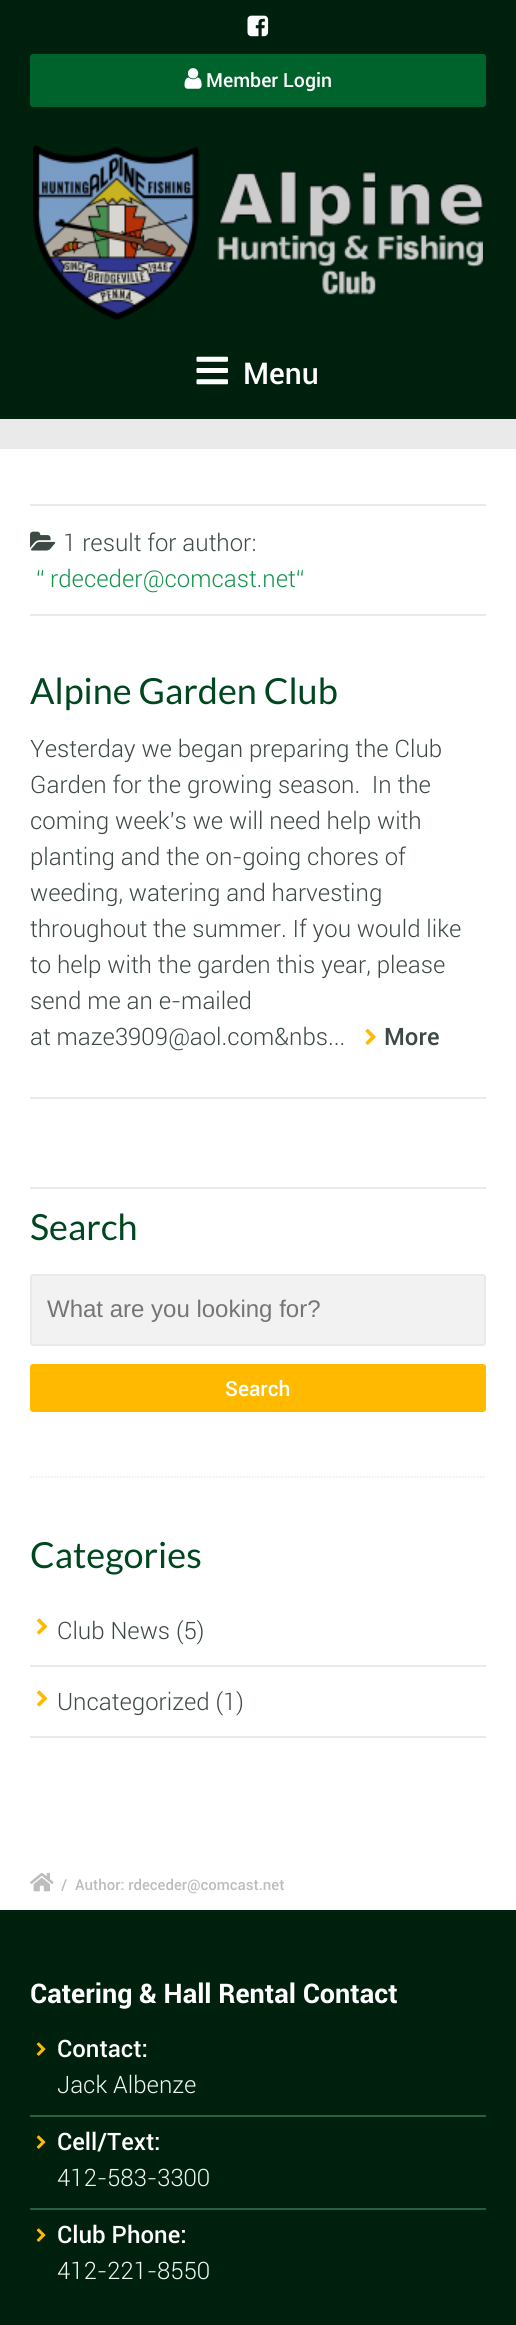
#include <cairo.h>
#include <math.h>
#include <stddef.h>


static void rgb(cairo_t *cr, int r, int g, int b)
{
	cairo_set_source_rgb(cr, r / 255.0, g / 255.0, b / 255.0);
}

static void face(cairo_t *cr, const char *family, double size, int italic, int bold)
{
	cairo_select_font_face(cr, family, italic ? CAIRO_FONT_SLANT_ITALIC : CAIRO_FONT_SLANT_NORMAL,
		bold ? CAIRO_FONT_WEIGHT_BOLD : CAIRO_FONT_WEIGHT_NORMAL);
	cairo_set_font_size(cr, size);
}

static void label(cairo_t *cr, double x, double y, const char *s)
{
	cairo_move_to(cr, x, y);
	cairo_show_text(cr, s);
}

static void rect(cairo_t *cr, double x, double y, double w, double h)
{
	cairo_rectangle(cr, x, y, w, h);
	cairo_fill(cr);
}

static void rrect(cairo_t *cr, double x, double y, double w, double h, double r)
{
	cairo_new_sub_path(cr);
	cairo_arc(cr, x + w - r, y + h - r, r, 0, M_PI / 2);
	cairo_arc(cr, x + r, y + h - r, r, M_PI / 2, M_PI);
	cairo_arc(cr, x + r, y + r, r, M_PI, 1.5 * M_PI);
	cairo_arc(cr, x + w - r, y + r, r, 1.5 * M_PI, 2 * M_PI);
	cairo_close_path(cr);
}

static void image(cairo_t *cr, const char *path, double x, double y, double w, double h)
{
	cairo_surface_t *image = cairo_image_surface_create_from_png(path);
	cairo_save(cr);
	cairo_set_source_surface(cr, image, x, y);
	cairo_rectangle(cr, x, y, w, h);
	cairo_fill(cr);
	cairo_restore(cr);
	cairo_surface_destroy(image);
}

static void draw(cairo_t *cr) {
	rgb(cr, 255, 255, 255);
	cairo_paint(cr);
	rgb(cr, 0, 32, 14);
	rect(cr, 0, 0, 516, 419);
	image(cr, "image0.png", 247, 15, 22, 22);
	rgb(cr, 0, 99, 44);
	rrect(cr, 30, 54, 456, 53, 3);
	cairo_fill(cr);
	image(cr, "image1.png", 184, 68, 18, 21);
	face(cr, "Roboto Medium", 19.5, 0, 0);
	rgb(cr, 255, 255, 255);
	label(cr, 206, 87, "Member Login");
	image(cr, "image2.png", 33, 145, 450, 175);
	image(cr, "image3.png", 196, 356, 32, 29);
	face(cr, "Roboto Medium", 30, 0, 0);
	label(cr, 243, 384, "Menu");
	rgb(cr, 234, 234, 234);
	rect(cr, 0, 419, 516, 30);
	rect(cr, 30, 504, 456, 2);
	rect(cr, 30, 614, 456, 2);
	image(cr, "image4.png", 30, 531, 26, 20);
	face(cr, "Roboto Light", 24, 0, 0);
	rgb(cr, 61, 73, 66);
	label(cr, 63, 551, "1 result for author:");
	rgb(cr, 20, 147, 77);
	label(cr, 36, 587, "“");
	label(cr, 50, 587, "rdeceder@comcast.net“");
	face(cr, "Lato", 36, 0, 0);
	rgb(cr, 0, 71, 32);
	label(cr, 30, 704, "Alpine Garden Club");
	face(cr, "Roboto Light", 24, 0, 0);
	rgb(cr, 61, 73, 66);
	label(cr, 30, 757, "Yesterday we began preparing the Club");
	label(cr, 30, 793, "Garden for the growing season.  In the");
	label(cr, 30, 829, "coming week's we will need help with");
	label(cr, 30, 865, "planting and the on-going chores of");
	label(cr, 30, 901, "weeding, watering and harvesting");
	label(cr, 30, 937, "throughout the summer. If you would like");
	label(cr, 30, 973, "to help with the garden this year, please");
	label(cr, 30, 1009, "send me an e-mailed");
	label(cr, 30, 1045, "at maze3909@aol.com&nbs...");
	image(cr, "image5.png", 365, 1028, 11, 17);
	face(cr, "Roboto Medium", 24, 0, 0);
	label(cr, 384, 1045, "More");
	rgb(cr, 234, 234, 234);
	rect(cr, 30, 1097, 456, 2);
	rect(cr, 30, 1187, 456, 2);
	face(cr, "Lato", 36, 0, 0);
	rgb(cr, 0, 71, 32);
	label(cr, 30, 1240, "Search");
	rgb(cr, 242, 242, 242);
	rrect(cr, 31, 1275, 454, 70, 2);
	cairo_fill_preserve(cr);
	rgb(cr, 234, 234, 234);
	cairo_stroke(cr);
	face(cr, "Liberation Sans", 24, 0, 0);
	rgb(cr, 117, 117, 117);
	label(cr, 47, 1317, "What are you looking for?");
	rgb(cr, 255, 186, 0);
	rrect(cr, 30, 1364, 456, 48, 3);
	cairo_fill(cr);
	face(cr, "Roboto Medium", 21, 0, 0);
	rgb(cr, 255, 255, 255);
	label(cr, 225, 1396, "Search");
	cairo_new_path(cr);
	cairo_move_to(cr, 30, 1477);
	cairo_line_to(cr, 486, 1477);
	rgb(cr, 234, 234, 234);
	cairo_set_line_width(cr, 1.5);
	cairo_set_dash(cr, (double[]){1.5, 1.5}, 2, 0);
	cairo_stroke(cr);
	face(cr, "Lato", 36, 0, 0);
	rgb(cr, 0, 71, 32);
	label(cr, 30, 1568, "Categories");
	rgb(cr, 234, 234, 234);
	rect(cr, 30, 1665, 456, 2);
	image(cr, "image6.png", 36, 1618, 12, 17);
	face(cr, "Roboto Light", 24, 0, 0);
	rgb(cr, 61, 73, 66);
	label(cr, 57, 1639, "Club News (5)");
	rgb(cr, 234, 234, 234);
	rect(cr, 30, 1736, 456, 2);
	image(cr, "image6.png", 36, 1690, 12, 17);
	rgb(cr, 61, 73, 66);
	label(cr, 57, 1710, "Uncategorized (1)");
	image(cr, "image7.png", 30, 1872, 24, 20);
	face(cr, "Roboto Medium", 15, 0, 0);
	rgb(cr, 189, 189, 189);
	label(cr, 61, 1890, "/");
	label(cr, 75, 1890, "Author: rdeceder@comcast.net");
	rgb(cr, 0, 32, 14);
	rect(cr, 0, 1910, 516, 415);
	face(cr, "Roboto", 27, 0, 1);
	rgb(cr, 255, 255, 255);
	label(cr, 30, 2003, "Catering & Hall Rental Contact");
	rgb(cr, 37, 95, 63);
	rect(cr, 30, 2115, 456, 2);
	image(cr, "image8.png", 36, 2042, 10, 14);
	face(cr, "Roboto Medium", 24, 0, 0);
	rgb(cr, 255, 255, 255);
	label(cr, 57, 2057, "Contact:");
	face(cr, "Roboto Light", 24, 0, 0);
	rgb(cr, 240, 246, 243);
	label(cr, 57, 2093, "Jack Albenze");
	rgb(cr, 37, 95, 63);
	rect(cr, 30, 2208, 456, 2);
	image(cr, "image8.png", 36, 2135, 10, 14);
	face(cr, "Roboto Medium", 24, 0, 0);
	rgb(cr, 255, 255, 255);
	label(cr, 57, 2150, "Cell/Text:");
	face(cr, "Roboto Light", 24, 0, 0);
	rgb(cr, 240, 246, 243);
	label(cr, 57, 2186, "412-583-3300");
	image(cr, "image8.png", 36, 2228, 10, 14);
	face(cr, "Roboto Medium", 24, 0, 0);
	rgb(cr, 255, 255, 255);
	label(cr, 57, 2243, "Club Phone:");
	face(cr, "Roboto Light", 24, 0, 0);
	rgb(cr, 240, 246, 243);
	label(cr, 57, 2279, "412-221-8550");
}

int main(void) {
	cairo_surface_t *surface = cairo_image_surface_create(CAIRO_FORMAT_RGB24, 516, 2325);
	cairo_t *cr = cairo_create(surface);
	cairo_font_options_t *options = cairo_font_options_create();
	cairo_font_options_set_hint_metrics(options, CAIRO_HINT_METRICS_OFF);
	cairo_font_options_set_hint_style(options, CAIRO_HINT_STYLE_NONE);
	cairo_set_font_options(cr, options);
	cairo_set_miter_limit(cr, 4);
	draw(cr);
	cairo_surface_write_to_png(surface, "render.png");
	cairo_font_options_destroy(options);
	cairo_destroy(cr);
	cairo_surface_destroy(surface);
	return 0;
}
